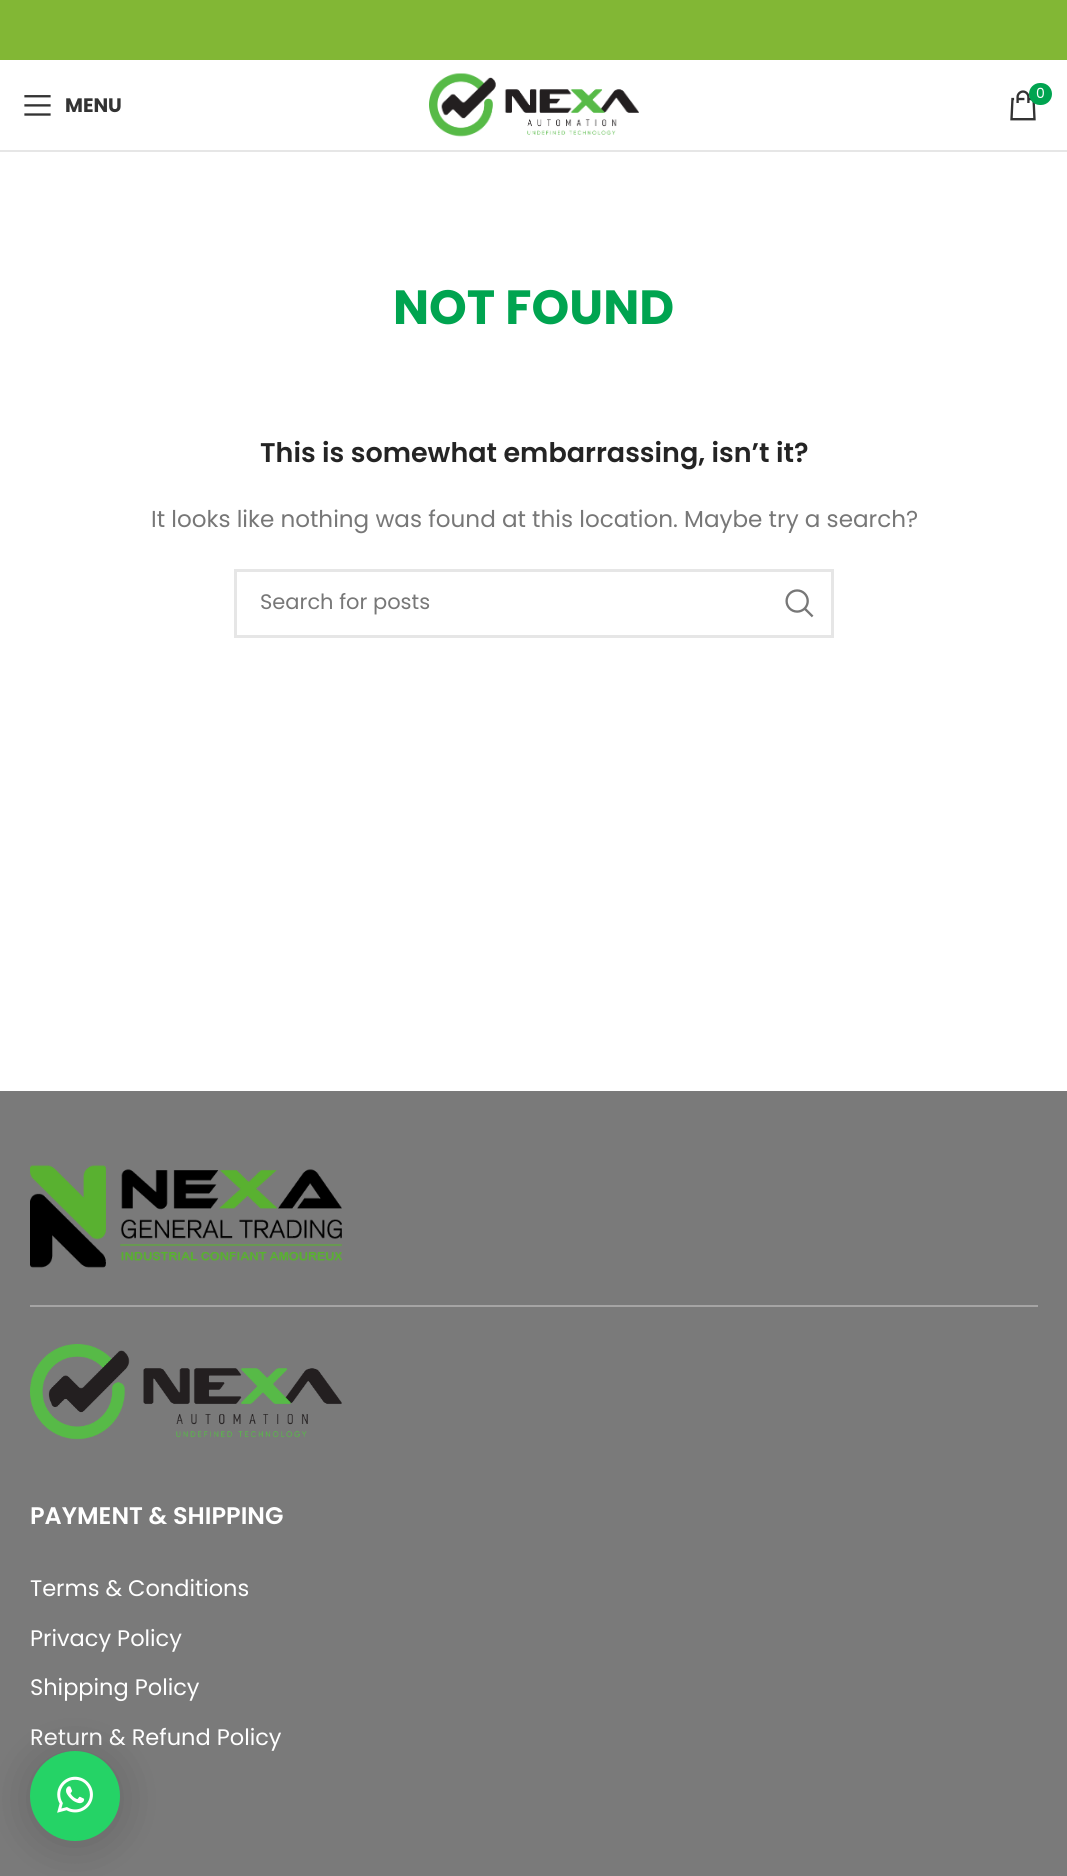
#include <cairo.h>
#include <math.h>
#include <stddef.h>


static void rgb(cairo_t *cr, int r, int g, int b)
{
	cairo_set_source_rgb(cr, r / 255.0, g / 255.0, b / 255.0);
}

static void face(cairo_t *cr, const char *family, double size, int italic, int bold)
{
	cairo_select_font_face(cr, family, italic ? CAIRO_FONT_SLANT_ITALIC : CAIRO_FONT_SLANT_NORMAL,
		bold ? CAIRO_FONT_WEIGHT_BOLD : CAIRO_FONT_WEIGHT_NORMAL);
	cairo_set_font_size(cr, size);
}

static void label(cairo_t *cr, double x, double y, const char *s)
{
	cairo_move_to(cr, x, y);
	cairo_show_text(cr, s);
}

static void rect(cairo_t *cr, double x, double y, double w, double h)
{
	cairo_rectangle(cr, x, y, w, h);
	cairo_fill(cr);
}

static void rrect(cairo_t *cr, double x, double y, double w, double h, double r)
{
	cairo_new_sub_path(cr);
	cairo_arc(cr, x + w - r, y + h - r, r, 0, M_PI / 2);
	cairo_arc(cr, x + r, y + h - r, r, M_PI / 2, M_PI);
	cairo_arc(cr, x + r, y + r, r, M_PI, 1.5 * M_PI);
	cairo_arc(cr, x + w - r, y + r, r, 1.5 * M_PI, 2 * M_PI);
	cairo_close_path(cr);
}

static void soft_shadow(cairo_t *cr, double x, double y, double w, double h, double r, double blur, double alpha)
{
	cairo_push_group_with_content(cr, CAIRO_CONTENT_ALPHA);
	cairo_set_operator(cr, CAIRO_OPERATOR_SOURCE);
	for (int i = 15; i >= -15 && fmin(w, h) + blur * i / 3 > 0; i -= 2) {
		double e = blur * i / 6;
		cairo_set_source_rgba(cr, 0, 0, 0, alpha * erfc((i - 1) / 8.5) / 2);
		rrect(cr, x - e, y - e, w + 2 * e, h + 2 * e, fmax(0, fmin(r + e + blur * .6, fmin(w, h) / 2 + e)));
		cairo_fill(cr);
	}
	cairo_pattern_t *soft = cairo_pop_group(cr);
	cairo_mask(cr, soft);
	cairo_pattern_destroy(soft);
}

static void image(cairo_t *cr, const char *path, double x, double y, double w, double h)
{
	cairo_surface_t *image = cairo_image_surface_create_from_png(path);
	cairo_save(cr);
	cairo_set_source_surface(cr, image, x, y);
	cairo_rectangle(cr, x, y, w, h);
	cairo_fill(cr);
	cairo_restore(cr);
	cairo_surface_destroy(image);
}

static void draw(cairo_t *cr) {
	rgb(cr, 255, 255, 255);
	cairo_paint(cr);
	rgb(cr, 130, 183, 53);
	rect(cr, 0, 0, 1067, 60);
	rgb(cr, 230, 230, 230);
	rect(cr, 0, 150, 1067, 2);
	image(cr, "image0.png", 429, 73, 210, 64);
	image(cr, "image1.png", 1010, 90, 26, 31);
	rgb(cr, 0, 164, 80);
	rrect(cr, 1029, 83, 23, 22, 11);
	cairo_fill(cr);
	face(cr, "Poppins", 14, 0, 0);
	rgb(cr, 255, 255, 255);
	label(cr, 1036, 98, "0");
	image(cr, "image2.png", 24, 95, 27, 21);
	face(cr, "Poppins", 19.5, 0, 1);
	rgb(cr, 51, 51, 51);
	label(cr, 65, 112, "MENU");
	face(cr, "Poppins", 48, 0, 1);
	rgb(cr, 0, 164, 80);
	label(cr, 393, 324, "NOT FOUND");
	face(cr, "Poppins SemiBold", 27, 0, 0);
	rgb(cr, 36, 36, 36);
	label(cr, 260, 462, "This is somewhat embarrassing, isn’t it?");
	face(cr, "Poppins", 23.1, 0, 0);
	rgb(cr, 119, 119, 119);
	label(cr, 151, 527, "It looks like nothing was found at this location. Maybe try a search?");
	cairo_rectangle(cr, 235.5, 570.5, 597, 66);
	rgb(cr, 230, 230, 230);
	cairo_set_line_width(cr, 3);
	cairo_stroke(cr);
	face(cr, "Poppins", 21, 0, 0);
	rgb(cr, 119, 119, 119);
	label(cr, 260, 609, "Search for posts");
	image(cr, "image3.png", 785, 589, 29, 29);
	rgb(cr, 122, 122, 122);
	rect(cr, 0, 1091, 1067, 785);
	image(cr, "image4.png", 30, 1165, 312, 103);
	rgb(cr, 165, 164, 164);
	rect(cr, 30, 1305, 1008, 2);
	image(cr, "image5.png", 30, 1344, 312, 96);
	face(cr, "Poppins SemiBold", 24, 0, 0);
	rgb(cr, 255, 255, 255);
	label(cr, 30, 1524, "PAYMENT & SHIPPING");
	face(cr, "Poppins", 22.5, 0, 0);
	label(cr, 30, 1596, "Terms & Conditions");
	label(cr, 30, 1646, "Privacy Policy");
	label(cr, 30, 1695, "Shipping Policy");
	label(cr, 30, 1745, "Return & Refund Policy");
	rgb(cr, 0, 0, 0);
	soft_shadow(cr, 30, 1754, 90, 90, 45, 24, 0.16);
	rgb(cr, 37, 211, 102);
	cairo_arc(cr, 75, 1796, 45, 0, 2 * M_PI);
	cairo_fill(cr);
	image(cr, "image6.png", 57, 1776, 36, 37);
}

int main(void) {
	cairo_surface_t *surface = cairo_image_surface_create(CAIRO_FORMAT_RGB24, 1067, 1876);
	cairo_t *cr = cairo_create(surface);
	cairo_font_options_t *options = cairo_font_options_create();
	cairo_font_options_set_hint_metrics(options, CAIRO_HINT_METRICS_OFF);
	cairo_font_options_set_hint_style(options, CAIRO_HINT_STYLE_NONE);
	cairo_set_font_options(cr, options);
	cairo_set_miter_limit(cr, 4);
	draw(cr);
	cairo_surface_write_to_png(surface, "render.png");
	cairo_font_options_destroy(options);
	cairo_destroy(cr);
	cairo_surface_destroy(surface);
	return 0;
}
